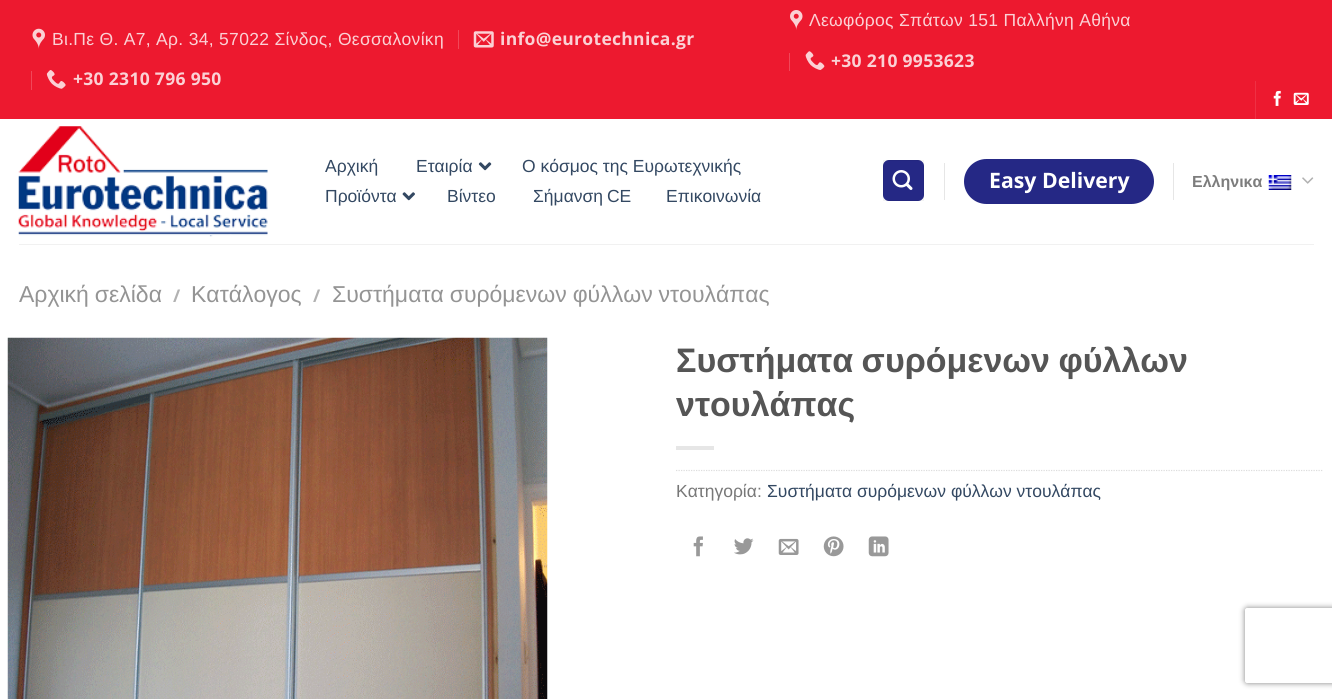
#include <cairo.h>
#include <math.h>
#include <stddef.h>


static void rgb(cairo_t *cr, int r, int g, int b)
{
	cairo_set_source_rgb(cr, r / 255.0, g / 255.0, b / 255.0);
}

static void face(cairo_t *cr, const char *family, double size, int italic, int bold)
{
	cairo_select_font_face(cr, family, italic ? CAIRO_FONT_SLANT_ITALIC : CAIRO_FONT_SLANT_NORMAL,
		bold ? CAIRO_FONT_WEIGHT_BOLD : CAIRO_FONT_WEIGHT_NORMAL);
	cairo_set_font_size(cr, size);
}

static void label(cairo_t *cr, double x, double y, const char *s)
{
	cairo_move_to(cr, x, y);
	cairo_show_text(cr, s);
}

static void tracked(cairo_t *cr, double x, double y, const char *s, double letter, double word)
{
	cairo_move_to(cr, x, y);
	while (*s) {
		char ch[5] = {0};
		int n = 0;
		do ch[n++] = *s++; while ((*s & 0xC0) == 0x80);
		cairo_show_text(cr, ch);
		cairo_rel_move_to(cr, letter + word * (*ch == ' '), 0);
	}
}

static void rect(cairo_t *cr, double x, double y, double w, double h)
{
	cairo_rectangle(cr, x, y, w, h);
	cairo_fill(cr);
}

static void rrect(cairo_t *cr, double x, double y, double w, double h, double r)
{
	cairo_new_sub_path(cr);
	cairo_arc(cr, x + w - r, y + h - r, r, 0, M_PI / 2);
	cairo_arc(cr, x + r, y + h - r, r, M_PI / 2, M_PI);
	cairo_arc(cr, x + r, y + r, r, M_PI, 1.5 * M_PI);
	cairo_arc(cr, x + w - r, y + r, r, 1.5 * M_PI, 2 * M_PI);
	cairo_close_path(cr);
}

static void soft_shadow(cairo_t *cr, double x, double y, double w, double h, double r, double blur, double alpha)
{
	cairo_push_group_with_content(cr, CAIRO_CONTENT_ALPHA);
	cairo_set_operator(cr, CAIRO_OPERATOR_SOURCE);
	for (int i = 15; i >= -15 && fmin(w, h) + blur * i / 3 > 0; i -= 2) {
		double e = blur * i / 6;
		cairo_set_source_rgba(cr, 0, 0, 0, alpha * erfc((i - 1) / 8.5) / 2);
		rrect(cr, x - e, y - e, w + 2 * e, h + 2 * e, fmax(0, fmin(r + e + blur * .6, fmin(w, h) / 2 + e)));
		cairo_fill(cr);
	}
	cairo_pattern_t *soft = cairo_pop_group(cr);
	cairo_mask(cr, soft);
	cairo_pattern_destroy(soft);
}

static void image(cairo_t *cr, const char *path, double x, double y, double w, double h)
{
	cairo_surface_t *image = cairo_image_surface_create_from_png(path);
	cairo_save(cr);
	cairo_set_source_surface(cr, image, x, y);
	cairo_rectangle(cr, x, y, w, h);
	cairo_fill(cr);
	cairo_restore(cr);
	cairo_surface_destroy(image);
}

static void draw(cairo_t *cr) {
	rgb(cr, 255, 255, 255);
	cairo_paint(cr);
	rgb(cr, 237, 25, 47);
	rect(cr, 0, 0, 1332, 119);
	image(cr, "image0.png", 32, 28, 13, 21);
	face(cr, "Liberation Sans", 17.5, 0, 0);
	rgb(cr, 251, 209, 213);
	tracked(cr, 52, 45, "Βι.Πε Θ. Α7, Αρ. 34, 57022 Σίνδος, Θεσσαλονίκη", 0.3, 0);
	rgb(cr, 241, 71, 89);
	rect(cr, 458, 30, 1, 19);
	image(cr, "image1.png", 473, 31, 21, 17);
	face(cr, "Open Sans", 17.5, 0, 1);
	rgb(cr, 251, 209, 213);
	tracked(cr, 500, 45, "info@eurotechnica.gr", 0.3, 0);
	rgb(cr, 241, 71, 89);
	rect(cr, 31, 71, 1, 19);
	image(cr, "image2.png", 46, 70, 20, 19);
	rgb(cr, 251, 209, 213);
	tracked(cr, 73, 85, "+30 2310 796 950", 0.3, 0);
	image(cr, "image3.png", 790, 10, 13, 20);
	face(cr, "Liberation Sans", 17.5, 0, 0);
	tracked(cr, 809, 26, "Λεωφόρος Σπάτων 151 Παλλήνη Αθήνα", 0.3, 0);
	rgb(cr, 241, 71, 89);
	rect(cr, 789, 53, 1, 18);
	image(cr, "image4.png", 805, 51, 20, 19);
	face(cr, "Open Sans", 17.5, 0, 1);
	rgb(cr, 251, 209, 213);
	tracked(cr, 831, 67, "+30 210 9953623", 0.3, 0);
	rgb(cr, 239, 48, 68);
	rect(cr, 1255, 81, 1, 38);
	image(cr, "image5.png", 1273, 90, 8, 16);
	image(cr, "image6.png", 1293, 92, 16, 13);
	image(cr, "image7.png", 18, 126, 250, 111);
	face(cr, "Liberation Sans", 17.5, 0, 0);
	rgb(cr, 51, 72, 98);
	label(cr, 325, 172, "Αρχική");
	label(cr, 416, 172, "Εταιρία");
	image(cr, "image8.png", 478, 162, 14, 9);
	label(cr, 522, 172, "Ο κόσμος της Ευρωτεχνικής");
	label(cr, 325, 202, "Προϊόντα");
	image(cr, "image9.png", 402, 192, 13, 9);
	label(cr, 447, 202, "Βίντεο");
	tracked(cr, 533, 202, "Σήμανση CE", 0, -1);
	label(cr, 666, 202, "Επικοινωνία");
	rgb(cr, 37, 40, 133);
	rrect(cr, 883, 160, 41, 41, 6);
	cairo_fill(cr);
	cairo_rectangle(cr, 883.5, 160.5, 40, 40);
	cairo_set_source_rgba(cr, 0, 0, 0, 0.05);
	cairo_set_line_width(cr, 1);
	cairo_stroke(cr);
	image(cr, "image10.png", 892, 170, 21, 20);
	rgb(cr, 230, 230, 230);
	rect(cr, 944, 163, 1, 37);
	rgb(cr, 37, 40, 133);
	rrect(cr, 964, 159, 190, 45, 22.5);
	cairo_fill(cr);
	face(cr, "Open Sans", 21.25, 0, 1);
	rgb(cr, 255, 255, 255);
	label(cr, 989, 188, "Easy Delivery");
	rgb(cr, 230, 230, 230);
	rect(cr, 1173, 163, 1, 37);
	face(cr, "Liberation Sans", 16, 0, 1);
	rgb(cr, 125, 125, 125);
	label(cr, 1192, 187, "Ελληνικα");
	image(cr, "image11.png", 1268, 175, 24, 15);
	image(cr, "image12.png", 1302, 177, 12, 7);
	rgb(cr, 241, 241, 241);
	rect(cr, 19, 244, 1295, 1);
	face(cr, "Liberation Sans", 23, 0, 0);
	rgb(cr, 148, 148, 148);
	tracked(cr, 19, 302, "Αρχική σελίδα", 0, -0.5);
	face(cr, "Open Sans", 17.5, 0, 1);
	rgb(cr, 178, 178, 178);
	label(cr, 173, 302, "/");
	face(cr, "Liberation Sans", 23, 0, 0);
	rgb(cr, 148, 148, 148);
	label(cr, 191, 302, "Κατάλογος");
	face(cr, "Open Sans", 17.5, 0, 1);
	rgb(cr, 178, 178, 178);
	label(cr, 313, 302, "/");
	face(cr, "Liberation Sans", 23, 0, 0);
	rgb(cr, 148, 148, 148);
	tracked(cr, 332, 302, "Συστήματα συρόμενων φύλλων ντουλάπας", 0, -0.5);
	image(cr, "image13.png", 7, 337, 541, 362);
	face(cr, "Liberation Sans", 34, 0, 1);
	rgb(cr, 85, 85, 85);
	tracked(cr, 676, 372, "Συστήματα συρόμενων φύλλων", 0, -1);
	label(cr, 676, 416, "ντουλάπας");
	rgb(cr, 230, 230, 230);
	rect(cr, 676, 446, 38, 4);
	cairo_new_path(cr);
	cairo_move_to(cr, 676, 470.5);
	cairo_line_to(cr, 1322.5, 470.5);
	rgb(cr, 221, 221, 221);
	cairo_set_line_width(cr, 1.2);
	cairo_set_dash(cr, (double[]){1.25, 1.25}, 2, 0);
	cairo_stroke(cr);
	face(cr, "Liberation Sans", 17.5, 0, 0);
	rgb(cr, 119, 119, 119);
	label(cr, 676, 497, "Κατηγορία:");
	rgb(cr, 51, 72, 98);
	label(cr, 767, 497, "Συστήματα συρόμενων φύλλων ντουλάπας");
	image(cr, "image14.png", 693, 536, 10, 21);
	image(cr, "image15.png", 734, 538, 20, 17);
	image(cr, "image16.png", 778, 538, 21, 17);
	image(cr, "image17.png", 823, 536, 21, 21);
	image(cr, "image18.png", 868, 536, 21, 21);
	cairo_save(cr);
	cairo_set_fill_rule(cr, CAIRO_FILL_RULE_EVEN_ODD);
	cairo_new_path(cr);
	cairo_move_to(cr, 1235, 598);
	cairo_line_to(cr, 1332, 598);
	cairo_line_to(cr, 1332, 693);
	cairo_line_to(cr, 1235, 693);
	cairo_close_path(cr);
	cairo_move_to(cr, 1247.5, 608);
	cairo_line_to(cr, 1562.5, 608);
	cairo_curve_to(cr, 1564, 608, 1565, 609, 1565, 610.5);
	cairo_line_to(cr, 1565, 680.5);
	cairo_curve_to(cr, 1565, 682, 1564, 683, 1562.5, 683);
	cairo_line_to(cr, 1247.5, 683);
	cairo_curve_to(cr, 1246, 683, 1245, 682, 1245, 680.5);
	cairo_line_to(cr, 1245, 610.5);
	cairo_curve_to(cr, 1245, 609, 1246, 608, 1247.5, 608);
	cairo_close_path(cr);
	cairo_clip(cr);
	rgb(cr, 128, 128, 128);
	soft_shadow(cr, 1245, 608, 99, 75, 2.5, 3, 1);
	cairo_restore(cr);
}

int main(void) {
	cairo_surface_t *surface = cairo_image_surface_create(CAIRO_FORMAT_RGB24, 1332, 699);
	cairo_t *cr = cairo_create(surface);
	cairo_font_options_t *options = cairo_font_options_create();
	cairo_font_options_set_hint_metrics(options, CAIRO_HINT_METRICS_OFF);
	cairo_font_options_set_hint_style(options, CAIRO_HINT_STYLE_NONE);
	cairo_set_font_options(cr, options);
	cairo_set_miter_limit(cr, 4);
	draw(cr);
	cairo_surface_write_to_png(surface, "render.png");
	cairo_font_options_destroy(options);
	cairo_destroy(cr);
	cairo_surface_destroy(surface);
	return 0;
}
